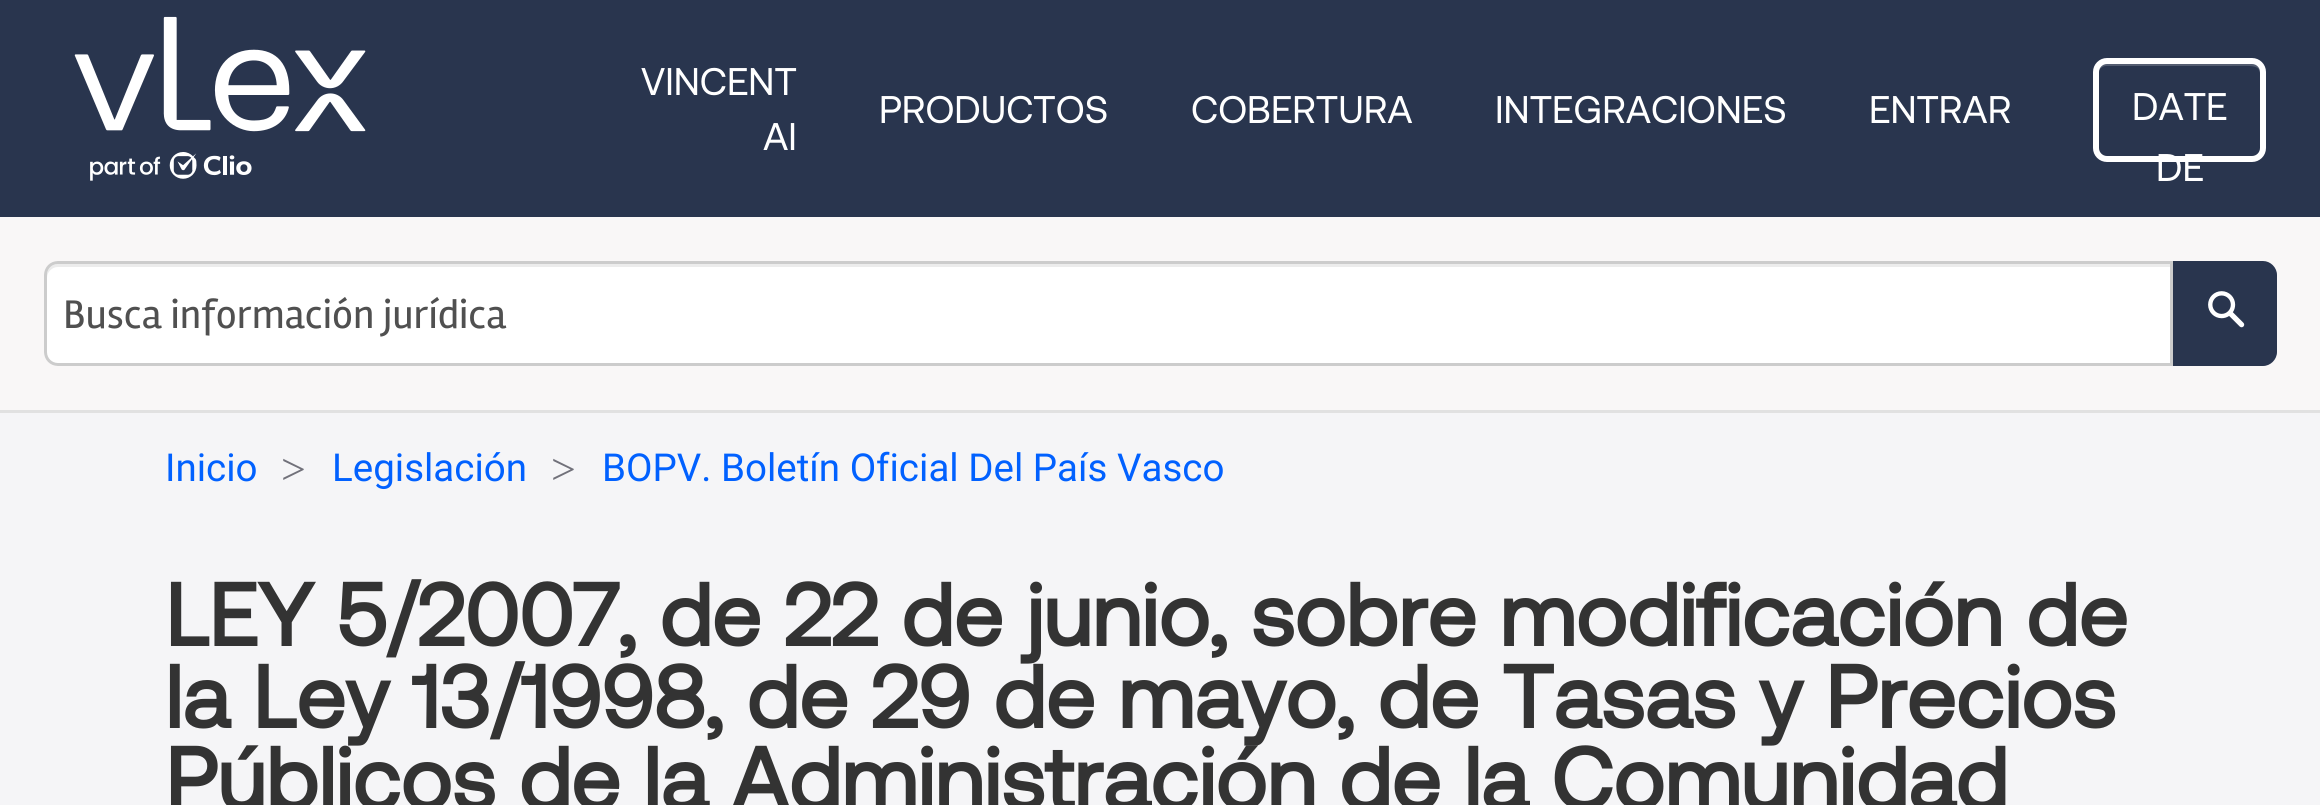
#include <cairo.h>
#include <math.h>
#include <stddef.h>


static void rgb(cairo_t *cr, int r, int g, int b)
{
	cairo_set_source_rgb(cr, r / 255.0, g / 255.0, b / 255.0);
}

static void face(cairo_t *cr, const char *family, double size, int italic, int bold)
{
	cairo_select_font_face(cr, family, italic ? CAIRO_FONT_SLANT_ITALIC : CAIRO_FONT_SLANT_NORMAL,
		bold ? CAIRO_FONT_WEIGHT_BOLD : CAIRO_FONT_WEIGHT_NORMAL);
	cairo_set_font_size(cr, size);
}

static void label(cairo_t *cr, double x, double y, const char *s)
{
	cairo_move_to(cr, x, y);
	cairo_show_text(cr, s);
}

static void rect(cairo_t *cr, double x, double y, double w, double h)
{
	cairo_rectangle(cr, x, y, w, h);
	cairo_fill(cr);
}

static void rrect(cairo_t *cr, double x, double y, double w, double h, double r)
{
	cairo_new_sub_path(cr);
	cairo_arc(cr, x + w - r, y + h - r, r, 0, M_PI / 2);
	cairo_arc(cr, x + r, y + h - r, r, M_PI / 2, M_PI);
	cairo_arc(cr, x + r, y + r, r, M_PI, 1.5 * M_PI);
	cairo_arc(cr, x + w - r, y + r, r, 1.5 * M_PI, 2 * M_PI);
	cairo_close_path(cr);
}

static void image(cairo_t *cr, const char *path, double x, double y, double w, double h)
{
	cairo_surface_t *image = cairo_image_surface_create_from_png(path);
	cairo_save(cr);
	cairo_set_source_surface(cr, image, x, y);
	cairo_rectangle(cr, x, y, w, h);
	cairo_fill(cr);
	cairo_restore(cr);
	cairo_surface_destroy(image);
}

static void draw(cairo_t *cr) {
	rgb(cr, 245, 245, 247);
	cairo_paint(cr);
	rgb(cr, 41, 53, 78);
	rect(cr, 0, 0, 2320, 217);
	image(cr, "image0.png", 74, 16, 292, 165);
	face(cr, "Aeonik", 38.5, 0, 0);
	rgb(cr, 255, 255, 255);
	label(cr, 641, 95, "VINCENT");
	label(cr, 763, 150, "AI");
	label(cr, 879, 123, "PRODUCTOS");
	label(cr, 1191, 123, "COBERTURA");
	label(cr, 1495, 123, "INTEGRACIONES");
	label(cr, 1869, 123, "ENTRAR");
	rgb(cr, 84, 93, 113);
	cairo_new_path(cr);
	cairo_move_to(cr, 2106, 66);
	cairo_line_to(cr, 2228, 66);
	cairo_curve_to(cr, 2266, 66, 2260, 62, 2260, 100);
	cairo_line_to(cr, 2260, 153);
	cairo_curve_to(cr, 2261, 152, 2261, 151, 2261, 149);
	cairo_line_to(cr, 2261, 71);
	cairo_curve_to(cr, 2261, 67, 2257, 63, 2253, 63);
	cairo_line_to(cr, 2106, 63);
	cairo_curve_to(cr, 2102, 63, 2098, 67, 2098, 71);
	cairo_line_to(cr, 2098, 74);
	cairo_curve_to(cr, 2098, 70, 2102, 66, 2106, 66);
	cairo_close_path(cr);
	cairo_fill(cr);
	rrect(cr, 2096, 61, 167, 98, 11);
	rgb(cr, 255, 255, 255);
	cairo_set_line_width(cr, 6);
	cairo_stroke(cr);
	label(cr, 2132, 120, "DATE");
	label(cr, 2156, 181, "DE");
	rgb(cr, 249, 247, 247);
	rect(cr, 0, 217, 2320, 193);
	rgb(cr, 225, 225, 225);
	rect(cr, 0, 410, 2320, 3);
	rgb(cr, 255, 255, 255);
	cairo_new_path(cr);
	cairo_move_to(cr, 58, 261);
	cairo_line_to(cr, 2173, 261);
	cairo_line_to(cr, 2173, 366);
	cairo_line_to(cr, 58, 366);
	cairo_curve_to(cr, 50.5, 366, 44, 359.5, 44, 352);
	cairo_line_to(cr, 44, 275);
	cairo_curve_to(cr, 44, 267.5, 50.5, 261, 58, 261);
	cairo_close_path(cr);
	cairo_fill(cr);
	rgb(cr, 236, 236, 236);
	cairo_new_path(cr);
	cairo_move_to(cr, 58, 267);
	cairo_line_to(cr, 2170, 267);
	cairo_line_to(cr, 2170, 264);
	cairo_line_to(cr, 58, 264);
	cairo_curve_to(cr, 52, 264, 47, 269, 47, 275);
	cairo_line_to(cr, 47, 278);
	cairo_curve_to(cr, 47, 272, 52, 267, 58, 267);
	cairo_close_path(cr);
	cairo_fill(cr);
	cairo_new_path(cr);
	cairo_move_to(cr, 58, 262.5);
	cairo_line_to(cr, 2171.5, 262.5);
	cairo_line_to(cr, 2171.5, 364.5);
	cairo_line_to(cr, 58, 364.5);
	cairo_curve_to(cr, 51, 364.5, 45.5, 359, 45.5, 352);
	cairo_line_to(cr, 45.5, 275);
	cairo_curve_to(cr, 45.5, 268, 51, 262.5, 58, 262.5);
	cairo_close_path(cr);
	rgb(cr, 204, 204, 204);
	cairo_set_line_width(cr, 3);
	cairo_stroke(cr);
	face(cr, "Rambla", 41.25, 0, 0);
	rgb(cr, 80, 80, 80);
	label(cr, 63, 328, "Busca información jurídica");
	rgb(cr, 41, 53, 78);
	cairo_new_path(cr);
	cairo_move_to(cr, 2173, 261);
	cairo_line_to(cr, 2263, 261);
	cairo_curve_to(cr, 2270.5, 261, 2277, 267.5, 2277, 275);
	cairo_line_to(cr, 2277, 352);
	cairo_curve_to(cr, 2277, 359.5, 2270.5, 366, 2263, 366);
	cairo_line_to(cr, 2173, 366);
	cairo_close_path(cr);
	cairo_fill(cr);
	image(cr, "image1.png", 2208, 291, 37, 37);
	face(cr, "Roboto", 38.5, 0, 0);
	rgb(cr, 1, 97, 255);
	label(cr, 165, 481, "Inicio");
	face(cr, "Liberation Serif", 44, 0, 0);
	rgb(cr, 113, 113, 122);
	label(cr, 281, 484, ">");
	face(cr, "Roboto", 38.5, 0, 0);
	rgb(cr, 1, 97, 255);
	label(cr, 332, 481, "Legislación");
	face(cr, "Liberation Serif", 44, 0, 0);
	rgb(cr, 113, 113, 122);
	label(cr, 551, 484, ">");
	face(cr, "Roboto", 38.5, 0, 0);
	rgb(cr, 1, 97, 255);
	label(cr, 602, 481, "BOPV. Boletín Oficial Del País Vasco");
	face(cr, "Aeonik", 88, 0, 1);
	rgb(cr, 51, 51, 51);
	label(cr, 165, 646, "LEY 5/2007, de 22 de junio, sobre modificación de");
	label(cr, 165, 728, "la Ley 13/1998, de 29 de mayo, de Tasas y Precios");
	label(cr, 165, 810, "Públicos de la Administración de la Comunidad");
}

int main(void) {
	cairo_surface_t *surface = cairo_image_surface_create(CAIRO_FORMAT_RGB24, 2320, 805);
	cairo_t *cr = cairo_create(surface);
	cairo_font_options_t *options = cairo_font_options_create();
	cairo_font_options_set_hint_metrics(options, CAIRO_HINT_METRICS_OFF);
	cairo_font_options_set_hint_style(options, CAIRO_HINT_STYLE_NONE);
	cairo_set_font_options(cr, options);
	cairo_set_miter_limit(cr, 4);
	draw(cr);
	cairo_surface_write_to_png(surface, "render.png");
	cairo_font_options_destroy(options);
	cairo_destroy(cr);
	cairo_surface_destroy(surface);
	return 0;
}
